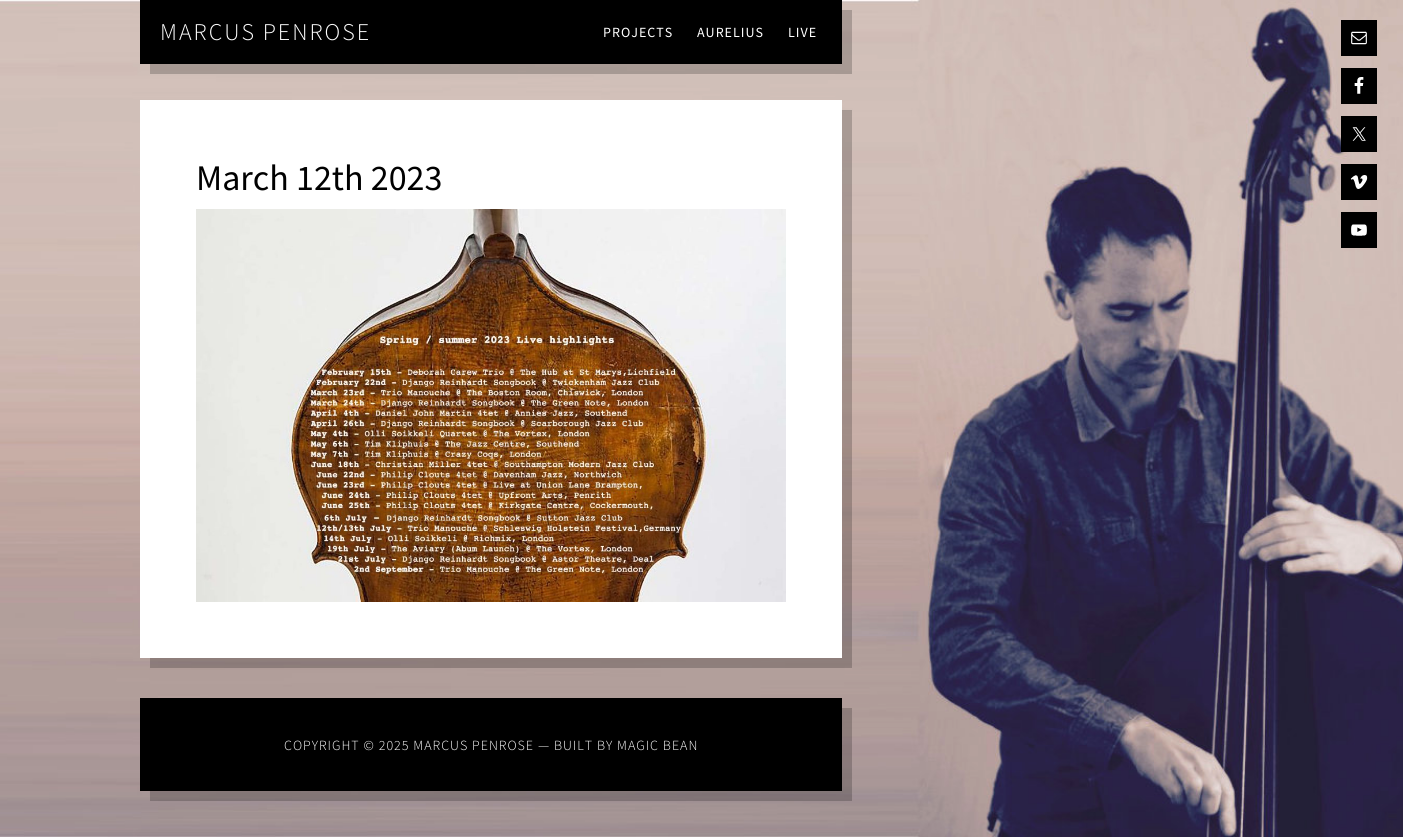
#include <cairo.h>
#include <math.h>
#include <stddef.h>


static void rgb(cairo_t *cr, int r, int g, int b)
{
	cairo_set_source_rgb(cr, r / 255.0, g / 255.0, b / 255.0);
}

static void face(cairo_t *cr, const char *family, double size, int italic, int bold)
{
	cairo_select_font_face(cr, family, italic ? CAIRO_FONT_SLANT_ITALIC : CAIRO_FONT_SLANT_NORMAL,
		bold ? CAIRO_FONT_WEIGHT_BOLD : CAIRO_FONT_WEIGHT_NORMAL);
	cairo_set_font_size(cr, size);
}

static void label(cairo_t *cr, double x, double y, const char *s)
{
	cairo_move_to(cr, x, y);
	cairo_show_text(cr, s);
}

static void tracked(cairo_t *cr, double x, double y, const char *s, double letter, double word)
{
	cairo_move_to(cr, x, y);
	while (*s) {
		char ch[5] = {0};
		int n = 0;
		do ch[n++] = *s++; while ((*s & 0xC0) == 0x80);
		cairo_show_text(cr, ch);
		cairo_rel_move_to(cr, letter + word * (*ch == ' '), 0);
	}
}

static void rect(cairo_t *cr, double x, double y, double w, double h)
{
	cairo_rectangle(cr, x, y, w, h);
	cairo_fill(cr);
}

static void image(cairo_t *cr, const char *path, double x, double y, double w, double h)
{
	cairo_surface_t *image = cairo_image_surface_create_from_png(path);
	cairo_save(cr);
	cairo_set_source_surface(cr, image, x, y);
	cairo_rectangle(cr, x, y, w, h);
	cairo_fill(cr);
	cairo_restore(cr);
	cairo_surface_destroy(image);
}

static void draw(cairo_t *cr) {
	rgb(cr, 255, 255, 255);
	cairo_paint(cr);
	image(cr, "image0.png", 0, 0, 1403, 837);
	cairo_set_source_rgba(cr, 0, 0, 0, 0.2);
	cairo_new_path(cr);
	cairo_move_to(cr, 150, 64);
	cairo_line_to(cr, 150, 74);
	cairo_line_to(cr, 852, 74);
	cairo_line_to(cr, 852, 10);
	cairo_line_to(cr, 842, 10);
	cairo_line_to(cr, 842, 64);
	cairo_close_path(cr);
	cairo_fill(cr);
	rgb(cr, 0, 0, 0);
	rect(cr, 140, 0, 702, 64);
	face(cr, "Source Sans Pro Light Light", 24, 0, 0);
	rgb(cr, 255, 255, 255);
	tracked(cr, 160, 40, "MARCUS PENROSE", 2, 0);
	face(cr, "Source Sans Pro", 14, 0, 0);
	tracked(cr, 603, 37, "PROJECTS", 1, 0);
	tracked(cr, 697, 37, "AURELIUS", 1, 0);
	tracked(cr, 788, 37, "LIVE", 1, 0);
	rgb(cr, 0, 0, 0);
	rect(cr, 1341, 20, 36, 36);
	image(cr, "image1.png", 1351, 31, 16, 14);
	rect(cr, 1341, 68, 36, 36);
	image(cr, "image2.png", 1354, 77, 10, 17);
	rect(cr, 1341, 116, 36, 36);
	image(cr, "image3.png", 1352, 127, 14, 14);
	rect(cr, 1341, 164, 36, 36);
	image(cr, "image4.png", 1350, 175, 18, 14);
	rect(cr, 1341, 212, 36, 36);
	image(cr, "image5.png", 1351, 224, 16, 12);
	cairo_set_source_rgba(cr, 0, 0, 0, 0.2);
	cairo_new_path(cr);
	cairo_move_to(cr, 150, 658);
	cairo_line_to(cr, 150, 668);
	cairo_line_to(cr, 852, 668);
	cairo_line_to(cr, 852, 110);
	cairo_line_to(cr, 842, 110);
	cairo_line_to(cr, 842, 658);
	cairo_close_path(cr);
	cairo_fill(cr);
	rgb(cr, 255, 255, 255);
	rect(cr, 140, 100, 702, 558);
	face(cr, "Source Sans Pro", 36, 0, 0);
	rgb(cr, 0, 0, 0);
	label(cr, 196, 190, "March 12th 2023");
	image(cr, "image6.png", 196, 209, 590, 393);
	cairo_set_source_rgba(cr, 0, 0, 0, 0.2);
	cairo_new_path(cr);
	cairo_move_to(cr, 150, 791);
	cairo_line_to(cr, 150, 801);
	cairo_line_to(cr, 852, 801);
	cairo_line_to(cr, 852, 708);
	cairo_line_to(cr, 842, 708);
	cairo_line_to(cr, 842, 791);
	cairo_close_path(cr);
	cairo_fill(cr);
	rgb(cr, 0, 0, 0);
	rect(cr, 140, 698, 702, 93);
	face(cr, "Source Sans Pro Light Light", 14, 0, 0);
	rgb(cr, 255, 255, 255);
	tracked(cr, 284, 750, "COPYRIGHT © 2025 MARCUS PENROSE — BUILT BY MAGIC BEAN", 1, 0);
}

int main(void) {
	cairo_surface_t *surface = cairo_image_surface_create(CAIRO_FORMAT_RGB24, 1403, 837);
	cairo_t *cr = cairo_create(surface);
	cairo_font_options_t *options = cairo_font_options_create();
	cairo_font_options_set_hint_metrics(options, CAIRO_HINT_METRICS_OFF);
	cairo_font_options_set_hint_style(options, CAIRO_HINT_STYLE_NONE);
	cairo_set_font_options(cr, options);
	cairo_set_miter_limit(cr, 4);
	draw(cr);
	cairo_surface_write_to_png(surface, "render.png");
	cairo_font_options_destroy(options);
	cairo_destroy(cr);
	cairo_surface_destroy(surface);
	return 0;
}
